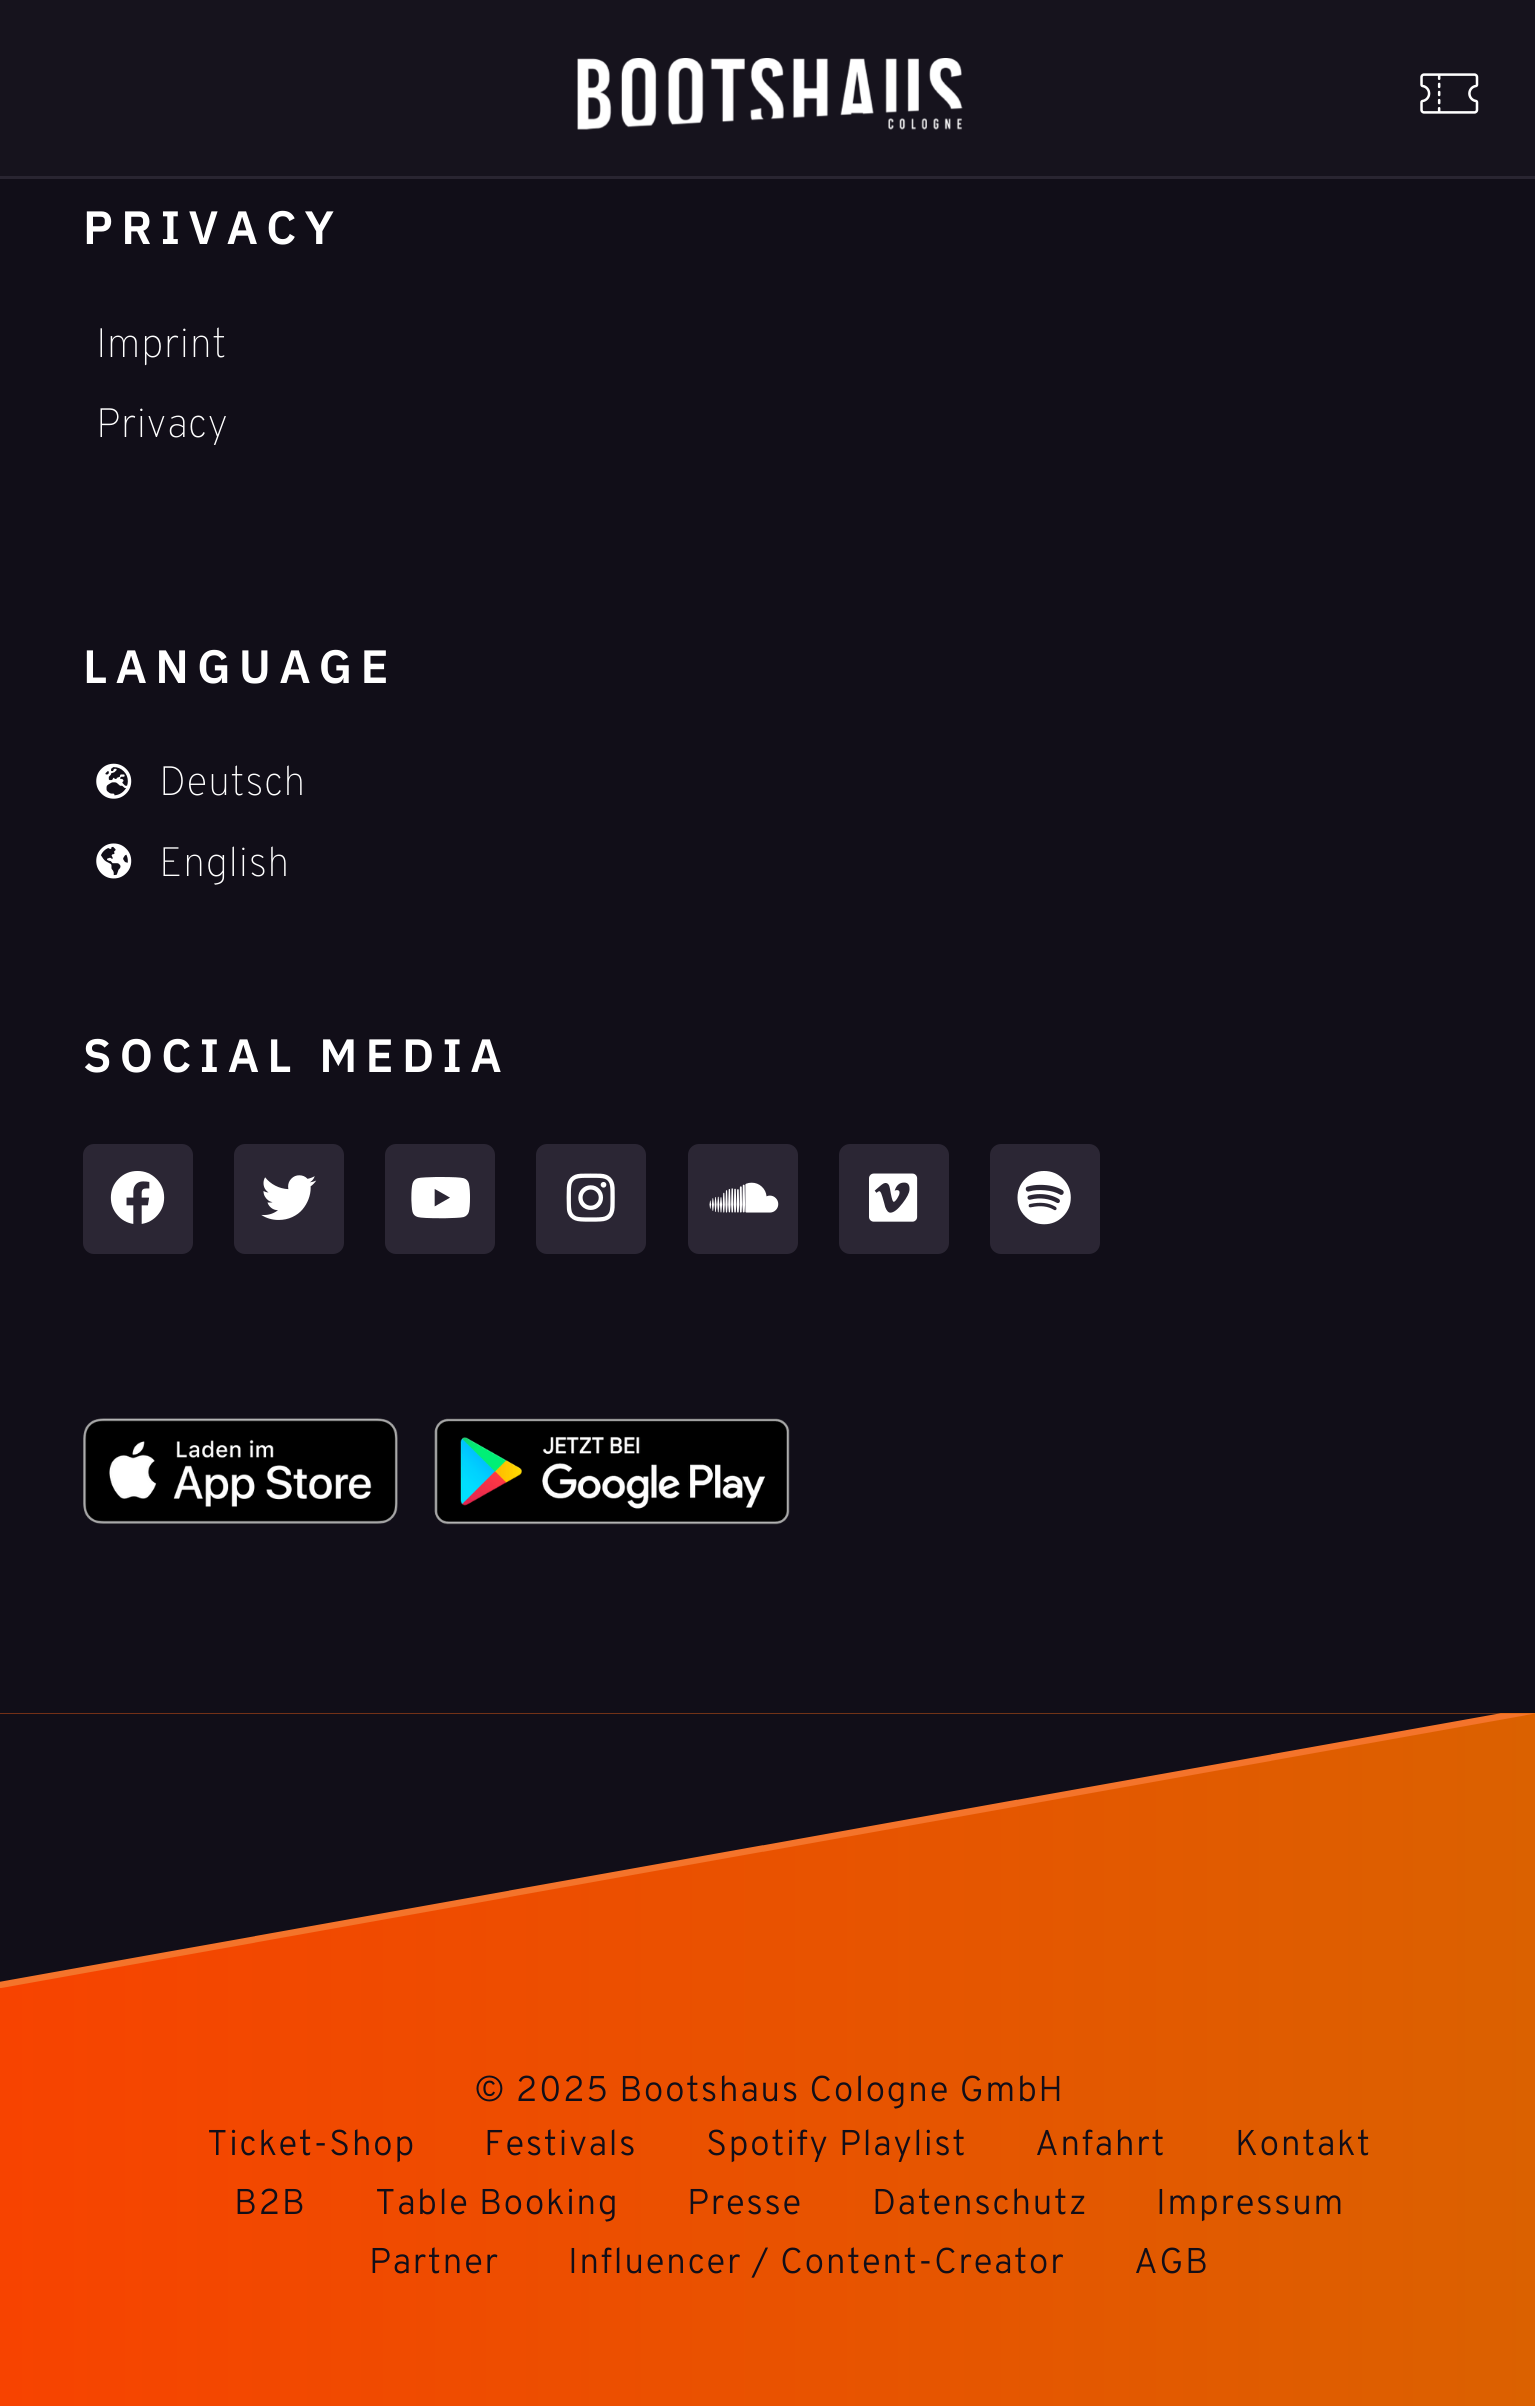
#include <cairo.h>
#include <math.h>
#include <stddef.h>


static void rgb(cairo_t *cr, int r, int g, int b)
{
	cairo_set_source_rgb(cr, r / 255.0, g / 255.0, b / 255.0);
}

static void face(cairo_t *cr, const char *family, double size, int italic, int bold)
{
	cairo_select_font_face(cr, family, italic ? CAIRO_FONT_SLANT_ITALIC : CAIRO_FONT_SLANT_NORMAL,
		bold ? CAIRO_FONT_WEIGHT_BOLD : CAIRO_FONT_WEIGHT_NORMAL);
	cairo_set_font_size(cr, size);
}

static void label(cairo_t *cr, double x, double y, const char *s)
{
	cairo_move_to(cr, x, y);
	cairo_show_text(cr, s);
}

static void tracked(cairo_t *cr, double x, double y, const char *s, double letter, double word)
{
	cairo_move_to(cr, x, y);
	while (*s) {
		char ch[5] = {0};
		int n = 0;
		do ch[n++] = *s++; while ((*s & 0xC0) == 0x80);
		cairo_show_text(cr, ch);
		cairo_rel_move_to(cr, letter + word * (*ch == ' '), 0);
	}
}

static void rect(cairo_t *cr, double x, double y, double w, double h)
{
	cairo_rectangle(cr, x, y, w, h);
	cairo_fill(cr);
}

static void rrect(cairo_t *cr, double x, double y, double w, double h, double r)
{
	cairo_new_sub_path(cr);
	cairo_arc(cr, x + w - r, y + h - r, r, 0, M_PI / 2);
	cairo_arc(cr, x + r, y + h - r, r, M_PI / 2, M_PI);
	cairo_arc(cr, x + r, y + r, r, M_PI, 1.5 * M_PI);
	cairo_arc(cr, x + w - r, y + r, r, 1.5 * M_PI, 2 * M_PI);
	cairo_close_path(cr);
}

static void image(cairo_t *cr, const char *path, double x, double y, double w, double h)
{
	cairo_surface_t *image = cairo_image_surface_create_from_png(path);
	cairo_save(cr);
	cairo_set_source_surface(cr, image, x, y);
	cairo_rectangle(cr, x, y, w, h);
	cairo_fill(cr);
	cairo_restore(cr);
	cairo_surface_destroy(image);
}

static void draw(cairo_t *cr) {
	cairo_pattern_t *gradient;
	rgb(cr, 17, 14, 24);
	cairo_paint(cr);
	rgb(cr, 22, 19, 29);
	rect(cr, 0, 0, 1535, 176);
	rgb(cr, 41, 37, 49);
	rect(cr, 0, 176, 1535, 3);
	image(cr, "image0.png", 577, 58, 386, 72);
	image(cr, "image1.png", 1420, 73, 59, 41);
	face(cr, "IBM Plex Sans SemiBold", 46.75, 0, 0);
	rgb(cr, 255, 255, 255);
	tracked(cr, 83, 244, "PRIVACY", 8.25, 0);
	face(cr, "Overpass Thin", 41, 0, 0);
	label(cr, 96, 357, "Imprint");
	label(cr, 96, 437, "Privacy");
	face(cr, "IBM Plex Sans SemiBold", 46.75, 0, 0);
	tracked(cr, 83, 683, "LANGUAGE", 8.25, 0);
	image(cr, "image2.png", 96, 763, 36, 36);
	face(cr, "Overpass Thin", 41, 0, 0);
	label(cr, 159, 795, "Deutsch");
	image(cr, "image3.png", 96, 843, 36, 36);
	label(cr, 159, 876, "English");
	face(cr, "IBM Plex Sans SemiBold", 46.75, 0, 0);
	tracked(cr, 83, 1072, "SOCIAL MEDIA", 8.25, 0);
	rgb(cr, 43, 38, 52);
	rrect(cr, 83, 1144, 110, 110, 11);
	cairo_fill(cr);
	image(cr, "image4.png", 110, 1171, 55, 53);
	rrect(cr, 234, 1144, 110, 110, 11);
	cairo_fill(cr);
	image(cr, "image5.png", 261, 1175, 56, 45);
	rrect(cr, 385, 1144, 110, 110, 11);
	cairo_fill(cr);
	image(cr, "image6.png", 411, 1177, 59, 42);
	rrect(cr, 536, 1144, 110, 110, 11);
	cairo_fill(cr);
	image(cr, "image7.png", 566, 1173, 49, 49);
	rrect(cr, 688, 1144, 110, 110, 11);
	cairo_fill(cr);
	image(cr, "image8.png", 709, 1182, 70, 31);
	rrect(cr, 839, 1144, 110, 110, 11);
	cairo_fill(cr);
	image(cr, "image9.png", 869, 1173, 49, 49);
	rrect(cr, 990, 1144, 110, 110, 11);
	cairo_fill(cr);
	image(cr, "image10.png", 1017, 1171, 54, 54);
	image(cr, "image11.png", 83, 1418, 315, 106);
	image(cr, "image12.png", 434, 1418, 356, 107);
	gradient = cairo_pattern_create_linear(0, 2060, 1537, 2060);
	cairo_pattern_add_color_stop_rgba(gradient, 0, 0.969, 0.263, 0, 1);
	cairo_pattern_add_color_stop_rgba(gradient, 1, 0.859, 0.38, 0, 1);
	cairo_set_source(cr, gradient);
	cairo_pattern_destroy(gradient);
	rect(cr, 0, 1713, 1535, 693);
	image(cr, "image13.png", 0, 1713, 1535, 275);
	face(cr, "Overpass Light", 35.75, 0, 0);
	rgb(cr, 18, 14, 24);
	tracked(cr, 474, 2101, "© 2025 Bootshaus Cologne GmbH", 1.4, 0);
	tracked(cr, 207, 2155, "Ticket-Shop", 1.4, 0);
	tracked(cr, 484, 2155, "Festivals", 1.4, 0);
	tracked(cr, 706, 2155, "Spotify Playlist", 1.4, 0);
	tracked(cr, 1035, 2155, "Anfahrt", 1.4, 0);
	tracked(cr, 1235, 2155, "Kontakt", 1.4, 0);
	tracked(cr, 234, 2214, "B2B", 1.4, 0);
	tracked(cr, 375, 2214, "Table Booking", 1.4, 0);
	tracked(cr, 687, 2214, "Presse", 1.4, 0);
	tracked(cr, 872, 2214, "Datenschutz", 1.4, 0);
	tracked(cr, 1156, 2214, "Impressum", 1.4, 0);
	tracked(cr, 369, 2273, "Partner", 1.4, 0);
	tracked(cr, 568, 2273, "Influencer / Content-Creator", 1.4, 0);
	tracked(cr, 1134, 2273, "AGB", 1.4, 0);
}

int main(void) {
	cairo_surface_t *surface = cairo_image_surface_create(CAIRO_FORMAT_RGB24, 1535, 2406);
	cairo_t *cr = cairo_create(surface);
	cairo_font_options_t *options = cairo_font_options_create();
	cairo_font_options_set_hint_metrics(options, CAIRO_HINT_METRICS_OFF);
	cairo_font_options_set_hint_style(options, CAIRO_HINT_STYLE_NONE);
	cairo_set_font_options(cr, options);
	cairo_set_miter_limit(cr, 4);
	draw(cr);
	cairo_surface_write_to_png(surface, "render.png");
	cairo_font_options_destroy(options);
	cairo_destroy(cr);
	cairo_surface_destroy(surface);
	return 0;
}
